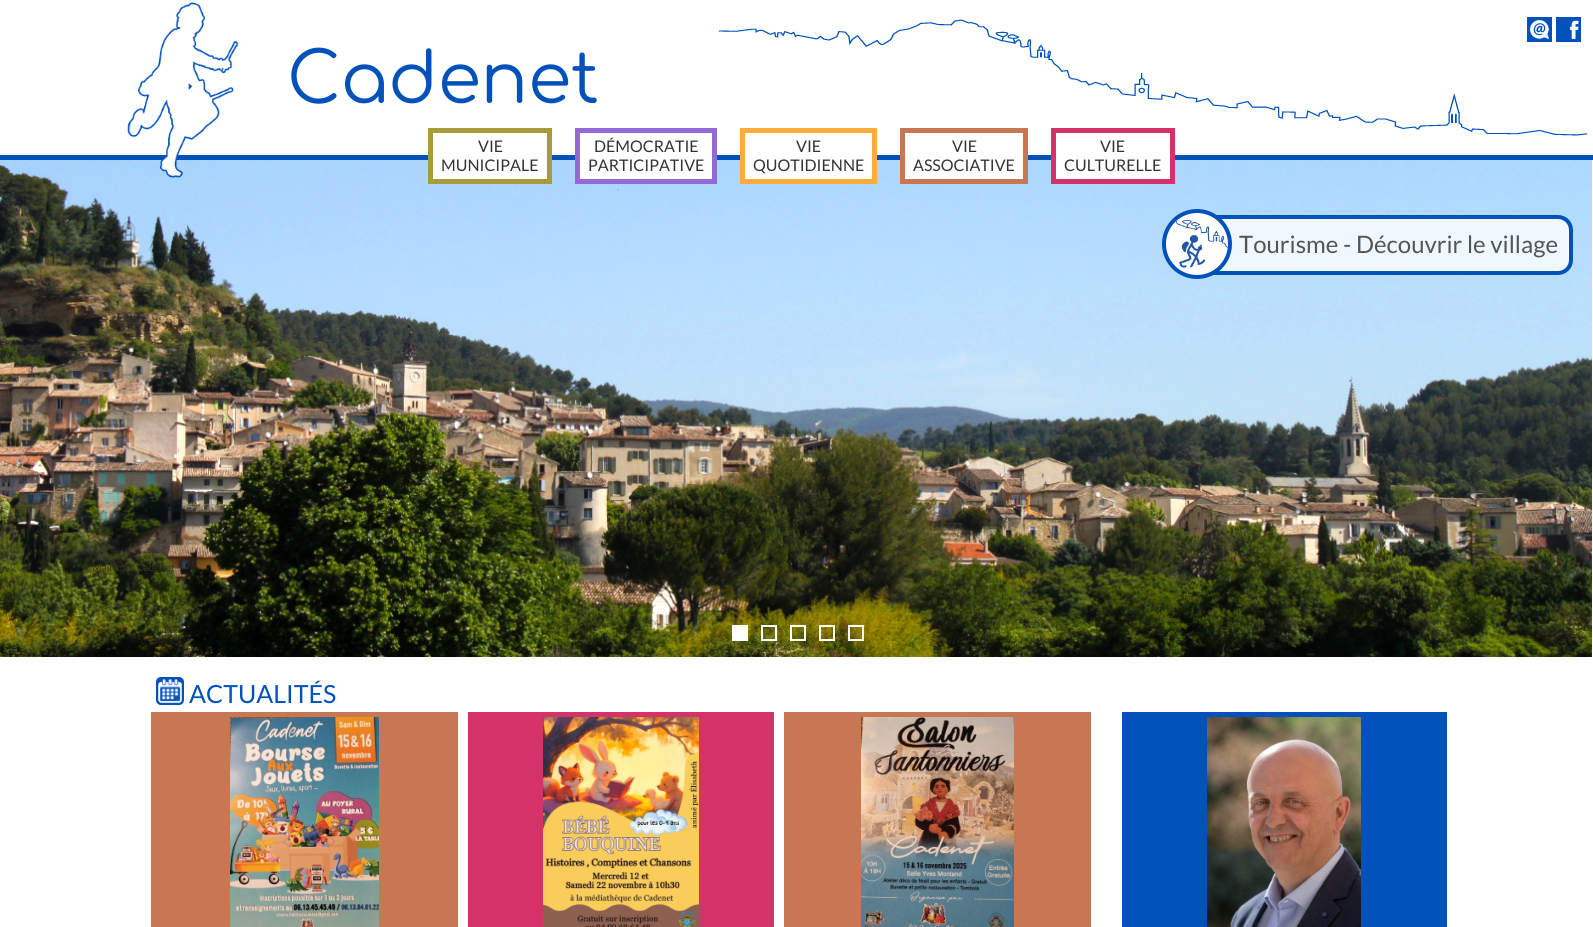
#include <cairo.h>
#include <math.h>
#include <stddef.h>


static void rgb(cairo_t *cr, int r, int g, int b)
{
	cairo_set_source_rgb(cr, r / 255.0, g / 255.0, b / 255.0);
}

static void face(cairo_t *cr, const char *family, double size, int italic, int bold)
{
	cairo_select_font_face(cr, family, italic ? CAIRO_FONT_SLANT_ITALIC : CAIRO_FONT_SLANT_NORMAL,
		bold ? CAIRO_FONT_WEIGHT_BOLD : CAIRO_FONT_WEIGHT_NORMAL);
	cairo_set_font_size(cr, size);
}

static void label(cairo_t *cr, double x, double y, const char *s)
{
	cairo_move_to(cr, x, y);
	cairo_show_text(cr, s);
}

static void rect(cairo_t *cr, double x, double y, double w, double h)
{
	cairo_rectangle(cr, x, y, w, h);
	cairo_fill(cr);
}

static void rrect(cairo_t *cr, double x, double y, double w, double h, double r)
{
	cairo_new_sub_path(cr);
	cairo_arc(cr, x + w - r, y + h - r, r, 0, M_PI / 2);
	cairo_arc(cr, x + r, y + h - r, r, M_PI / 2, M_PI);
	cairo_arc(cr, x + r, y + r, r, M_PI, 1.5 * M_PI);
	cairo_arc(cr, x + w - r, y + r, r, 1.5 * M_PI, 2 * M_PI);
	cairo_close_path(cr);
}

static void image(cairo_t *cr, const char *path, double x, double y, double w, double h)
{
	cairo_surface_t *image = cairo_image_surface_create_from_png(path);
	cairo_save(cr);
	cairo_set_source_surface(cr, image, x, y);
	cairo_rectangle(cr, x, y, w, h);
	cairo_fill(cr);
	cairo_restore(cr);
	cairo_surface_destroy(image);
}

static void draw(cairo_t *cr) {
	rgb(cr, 255, 255, 255);
	cairo_paint(cr);
	rgb(cr, 0, 81, 186);
	rect(cr, 0, 155, 1593, 5);
	image(cr, "image5.png", 0, 160, 1592, 497);
	image(cr, "image0.png", 127, 2, 112, 176);
	image(cr, "image3.png", 718, 19, 870, 117);
	image(cr, "image1.png", 1527, 17, 25, 25);
	image(cr, "image2.png", 1556, 17, 25, 25);
	face(cr, "Comfortaa", 70, 0, 0);
	label(cr, 287, 103, "Cadenet");
	rgb(cr, 255, 255, 255);
	rect(cr, 433, 155, 114, 24);
	cairo_rectangle(cr, 430.5, 130.5, 119, 51);
	rgb(cr, 167, 156, 57);
	cairo_set_line_width(cr, 5);
	cairo_stroke(cr);
	face(cr, "Lato", 16, 0, 0);
	rgb(cr, 51, 51, 51);
	label(cr, 478, 152, "VIE");
	label(cr, 441, 171, "MUNICIPALE");
	rgb(cr, 255, 255, 255);
	rect(cr, 580, 155, 132, 24);
	cairo_rectangle(cr, 577.5, 130.5, 137, 51);
	rgb(cr, 146, 105, 213);
	cairo_stroke(cr);
	rgb(cr, 51, 51, 51);
	label(cr, 594, 152, "DÉMOCRATIE");
	label(cr, 588, 171, "PARTICIPATIVE");
	rgb(cr, 255, 255, 255);
	rect(cr, 745, 155, 127, 24);
	cairo_rectangle(cr, 742.5, 130.5, 132, 51);
	rgb(cr, 255, 172, 60);
	cairo_stroke(cr);
	rgb(cr, 51, 51, 51);
	label(cr, 796, 152, "VIE");
	label(cr, 753, 171, "QUOTIDIENNE");
	rgb(cr, 255, 255, 255);
	rect(cr, 905, 155, 118, 24);
	cairo_rectangle(cr, 902.5, 130.5, 123, 51);
	rgb(cr, 199, 120, 83);
	cairo_stroke(cr);
	rgb(cr, 51, 51, 51);
	label(cr, 952, 152, "VIE");
	label(cr, 913, 171, "ASSOCIATIVE");
	rgb(cr, 255, 255, 255);
	rect(cr, 1056, 155, 114, 24);
	cairo_rectangle(cr, 1053.5, 130.5, 119, 51);
	rgb(cr, 212, 50, 104);
	cairo_stroke(cr);
	rgb(cr, 51, 51, 51);
	label(cr, 1100, 152, "VIE");
	label(cr, 1064, 171, "CULTURELLE");
	cairo_set_source_rgba(cr, 1, 1, 1, 0.8);
	rrect(cr, 1175, 217, 396, 56, 13);
	cairo_fill_preserve(cr);
	rgb(cr, 0, 81, 186);
	cairo_set_line_width(cr, 4);
	cairo_stroke(cr);
	rgb(cr, 255, 255, 255);
	cairo_arc(cr, 1197, 244, 33, 0, 2 * M_PI);
	cairo_fill_preserve(cr);
	rgb(cr, 0, 81, 186);
	cairo_stroke(cr);
	image(cr, "image4.png", 1176, 220, 52, 48);
	face(cr, "Lato", 24, 0, 0);
	rgb(cr, 85, 85, 85);
	label(cr, 1239, 253, "Tourisme - Découvrir le village");
	face(cr, "Lato", 10.25, 0, 0);
	rgb(cr, 51, 56, 22);
	label(cr, 82, 571, "© Mairie de Cadenet");
	rgb(cr, 255, 255, 255);
	rect(cr, 732, 625, 16, 16);
	image(cr, "image6.png", 761, 625, 16, 16);
	image(cr, "image7.png", 790, 625, 16, 16);
	image(cr, "image8.png", 819, 625, 16, 16);
	image(cr, "image9.png", 848, 625, 16, 16);
	rgb(cr, 0, 81, 186);
	rrect(cr, 156, 677, 28, 28, 5);
	cairo_fill(cr);
	image(cr, "image10.png", 158, 679, 24, 24);
	face(cr, "Lato", 25, 0, 0);
	label(cr, 189, 703, "ACTUALITÉS");
	rgb(cr, 199, 120, 83);
	rect(cr, 151, 712, 307, 215);
	image(cr, "image11.png", 230, 717, 149, 210);
	rgb(cr, 212, 50, 104);
	rect(cr, 468, 712, 306, 215);
	image(cr, "image12.png", 543, 717, 156, 210);
	rgb(cr, 199, 120, 83);
	rect(cr, 784, 712, 307, 215);
	image(cr, "image13.png", 861, 717, 153, 210);
	rgb(cr, 0, 81, 186);
	rect(cr, 1122, 712, 325, 215);
	image(cr, "image14.png", 1207, 717, 154, 210);
}

int main(void) {
	cairo_surface_t *surface = cairo_image_surface_create(CAIRO_FORMAT_RGB24, 1593, 927);
	cairo_t *cr = cairo_create(surface);
	cairo_font_options_t *options = cairo_font_options_create();
	cairo_font_options_set_hint_metrics(options, CAIRO_HINT_METRICS_OFF);
	cairo_font_options_set_hint_style(options, CAIRO_HINT_STYLE_NONE);
	cairo_set_font_options(cr, options);
	cairo_set_miter_limit(cr, 4);
	draw(cr);
	cairo_surface_write_to_png(surface, "render.png");
	cairo_font_options_destroy(options);
	cairo_destroy(cr);
	cairo_surface_destroy(surface);
	return 0;
}
